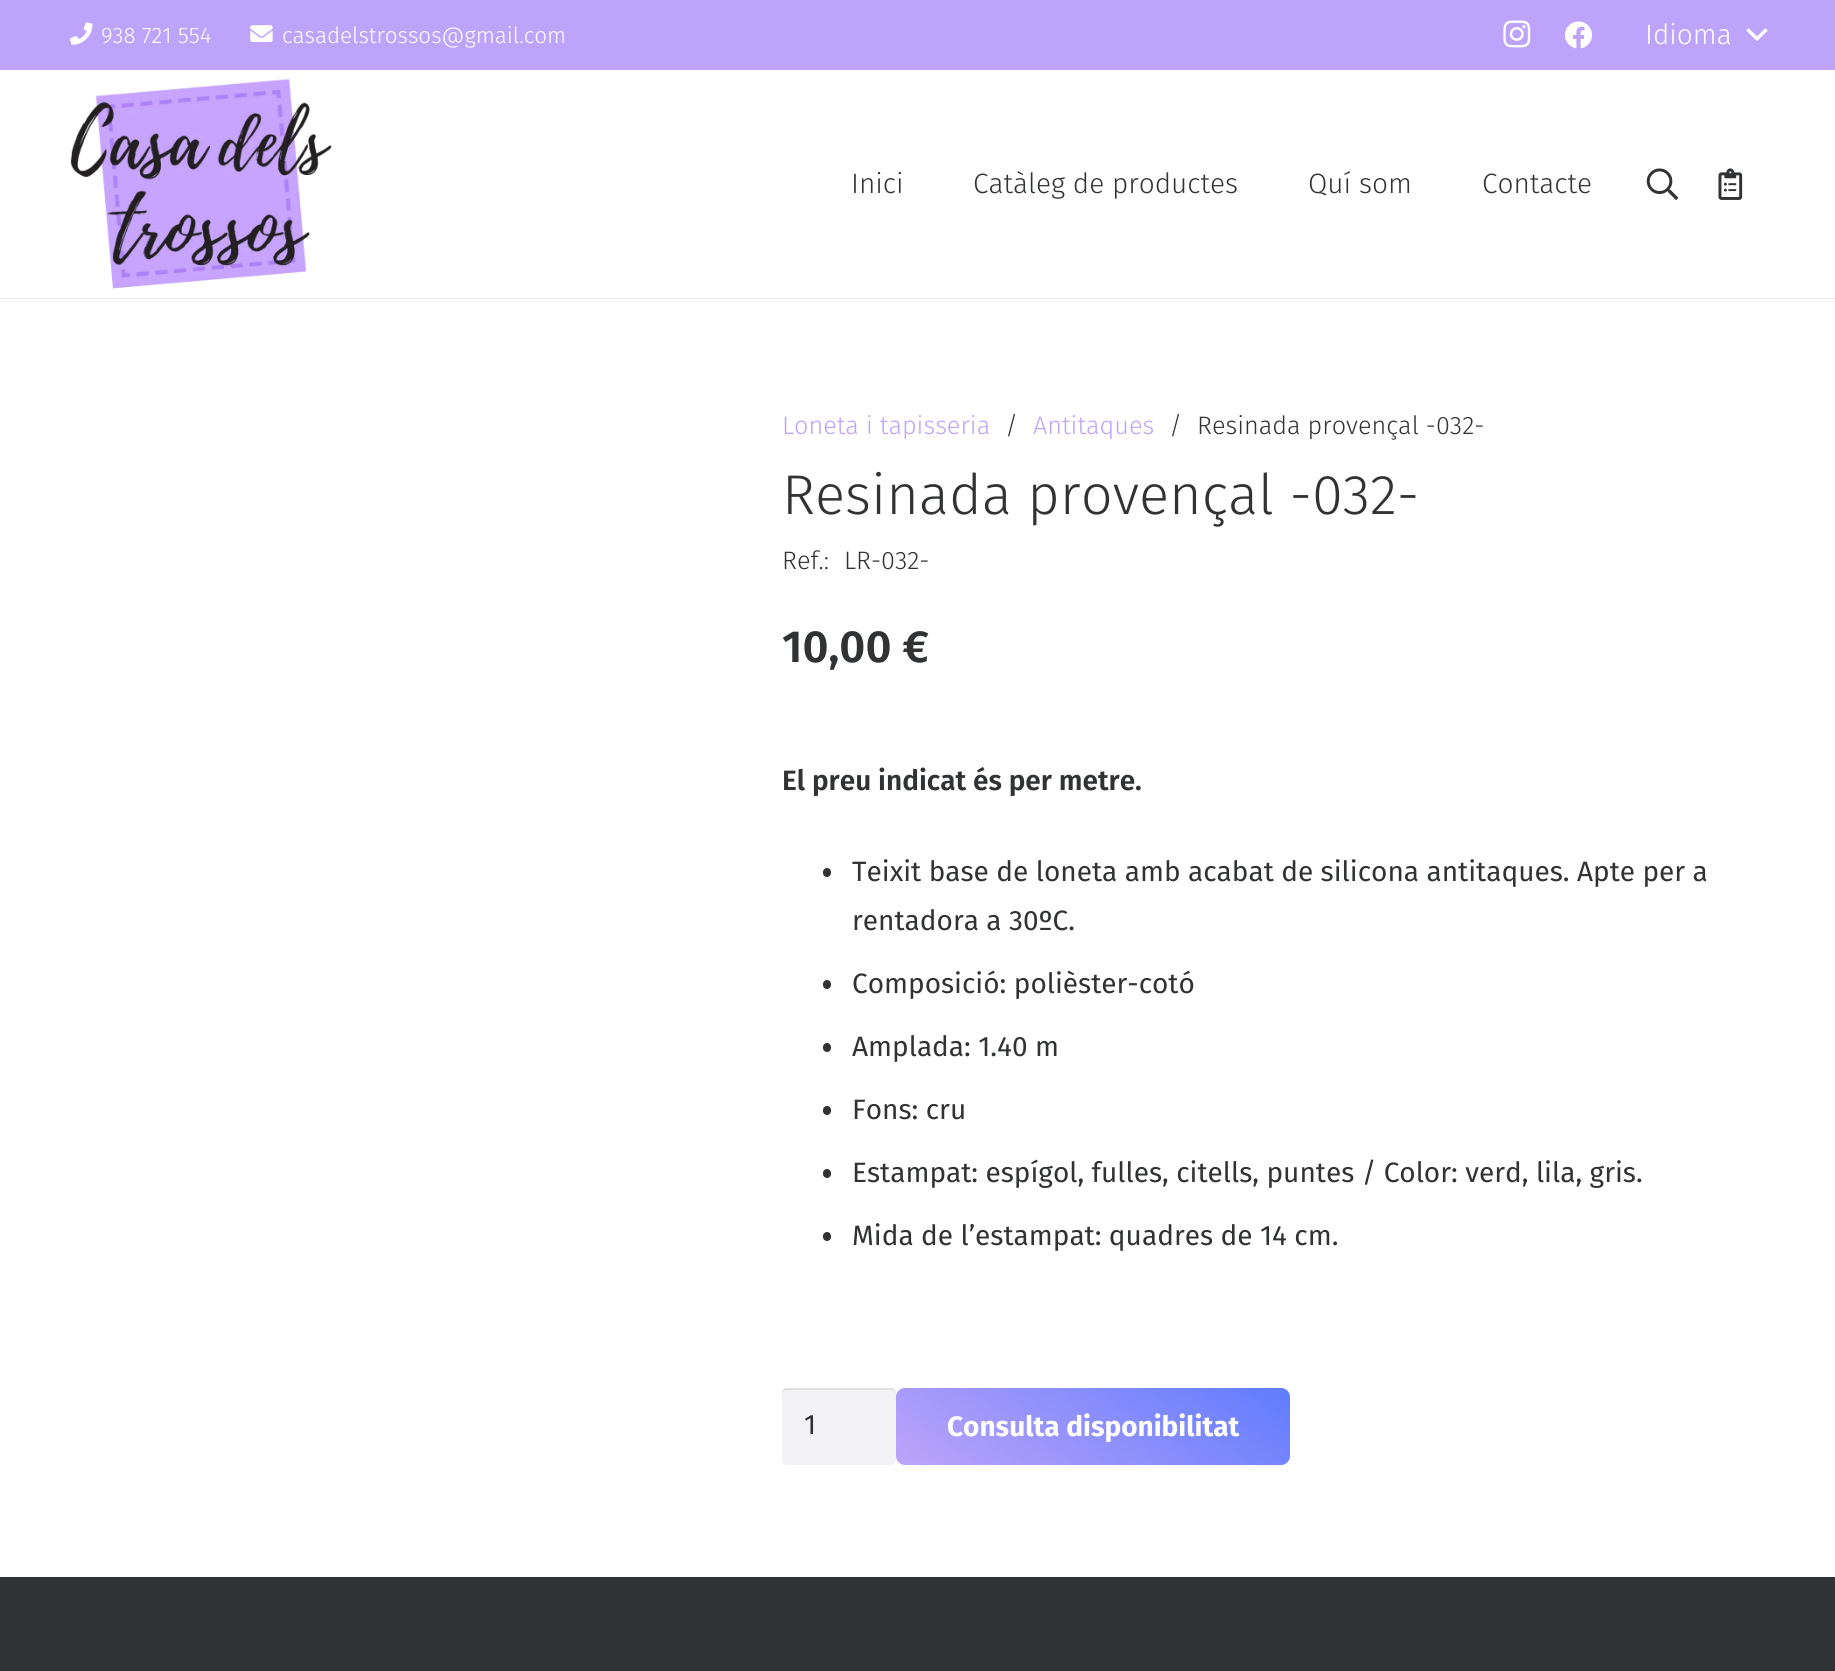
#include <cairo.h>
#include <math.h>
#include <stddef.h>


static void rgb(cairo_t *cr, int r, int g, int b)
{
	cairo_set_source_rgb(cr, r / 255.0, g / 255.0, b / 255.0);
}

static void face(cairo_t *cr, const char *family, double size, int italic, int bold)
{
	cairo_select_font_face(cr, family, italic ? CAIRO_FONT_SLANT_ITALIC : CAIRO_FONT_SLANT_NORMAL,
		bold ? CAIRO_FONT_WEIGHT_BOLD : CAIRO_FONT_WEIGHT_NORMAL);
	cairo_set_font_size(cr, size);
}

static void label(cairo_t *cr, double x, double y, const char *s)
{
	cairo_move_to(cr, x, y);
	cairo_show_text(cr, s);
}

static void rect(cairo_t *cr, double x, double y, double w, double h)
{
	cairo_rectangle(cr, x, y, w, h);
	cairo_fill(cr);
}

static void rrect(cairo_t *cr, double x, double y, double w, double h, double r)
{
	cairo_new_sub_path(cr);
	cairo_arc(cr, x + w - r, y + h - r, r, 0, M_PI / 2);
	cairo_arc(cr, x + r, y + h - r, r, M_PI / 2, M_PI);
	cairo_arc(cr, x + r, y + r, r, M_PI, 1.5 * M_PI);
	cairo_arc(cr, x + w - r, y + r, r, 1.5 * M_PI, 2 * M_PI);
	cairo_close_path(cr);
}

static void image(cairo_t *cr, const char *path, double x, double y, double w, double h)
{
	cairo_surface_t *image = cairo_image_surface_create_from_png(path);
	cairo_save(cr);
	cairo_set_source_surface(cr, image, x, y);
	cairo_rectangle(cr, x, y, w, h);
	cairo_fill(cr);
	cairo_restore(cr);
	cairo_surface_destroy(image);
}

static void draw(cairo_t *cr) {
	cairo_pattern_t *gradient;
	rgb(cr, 255, 255, 255);
	cairo_paint(cr);
	rgb(cr, 189, 164, 250);
	rect(cr, 0, 0, 1835, 70);
	image(cr, "image0.png", 70, 22, 23, 23);
	face(cr, "Fira Sans Light", 22.4, 0, 0);
	rgb(cr, 255, 255, 255);
	label(cr, 101, 43, "938 721 554");
	image(cr, "image1.png", 250, 25, 23, 17);
	label(cr, 282, 43, "casadelstrossos@gmail.com");
	image(cr, "image2.png", 1503, 20, 28, 28);
	image(cr, "image3.png", 1565, 21, 27, 28);
	face(cr, "Fira Sans Light", 28, 0, 0);
	label(cr, 1645, 44, "Idioma");
	image(cr, "image4.png", 1746, 28, 22, 13);
	rgb(cr, 235, 235, 235);
	cairo_new_path(cr);
	cairo_move_to(cr, 0, 298);
	cairo_line_to(cr, 0, 299);
	cairo_line_to(cr, 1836, 299);
	cairo_line_to(cr, 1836, 72);
	cairo_line_to(cr, 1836, 298);
	cairo_close_path(cr);
	cairo_fill(cr);
	image(cr, "image5.png", 70, 78, 262, 211);
	rgb(cr, 49, 50, 51);
	label(cr, 851, 193, "Inici");
	label(cr, 973, 193, "Catàleg de productes");
	label(cr, 1308, 193, "Quí som");
	label(cr, 1482, 193, "Contacte");
	image(cr, "image6.png", 1646, 168, 33, 32);
	image(cr, "image7.png", 1718, 168, 25, 32);
	face(cr, "Fira Sans Light", 25.25, 0, 0);
	rgb(cr, 189, 164, 250);
	label(cr, 782, 434, "Loneta i tapisseria");
	rgb(cr, 49, 50, 51);
	label(cr, 1005, 434, "/");
	rgb(cr, 189, 164, 250);
	label(cr, 1033, 434, "Antitaques");
	rgb(cr, 49, 50, 51);
	label(cr, 1169, 434, "/");
	label(cr, 1197, 434, "Resinada provençal -032-");
	face(cr, "Fira Sans Light", 56, 0, 0);
	label(cr, 782, 514, "Resinada provençal -032-");
	face(cr, "Fira Sans Light", 25.25, 0, 0);
	label(cr, 782, 569, "Ref.:");
	label(cr, 844, 569, "LR-032-");
	face(cr, "Fira Sans SemiBold", 45, 0, 0);
	label(cr, 782, 662, "10,00 €");
	face(cr, "Fira Sans SemiBold", 28, 0, 0);
	label(cr, 782, 790, "El preu indicat és per metre.");
	rrect(cr, 823, 868, 8, 9, 4);
	cairo_fill(cr);
	face(cr, "Fira Sans", 28, 0, 0);
	label(cr, 852, 881, "Teixit base de loneta amb acabat de silicona antitaques. Apte per a");
	label(cr, 852, 930, "rentadora a 30ºC.");
	rrect(cr, 823, 980, 8, 9, 4);
	cairo_fill(cr);
	label(cr, 852, 993, "Composició: polièster-cotó");
	rrect(cr, 823, 1043, 8, 9, 4);
	cairo_fill(cr);
	label(cr, 852, 1056, "Amplada: 1.40 m");
	rrect(cr, 823, 1106, 8, 9, 4);
	cairo_fill(cr);
	label(cr, 852, 1119, "Fons: cru");
	rrect(cr, 823, 1169, 8, 9, 4);
	cairo_fill(cr);
	label(cr, 852, 1182, "Estampat: espígol, fulles, citells, puntes / Color: verd, lila, gris.");
	rrect(cr, 823, 1232, 8, 9, 4);
	cairo_fill(cr);
	label(cr, 852, 1245, "Mida de l’estampat: quadres de 14 cm.");
	rgb(cr, 243, 242, 245);
	rrect(cr, 782, 1388, 114, 77, 5);
	cairo_fill(cr);
	cairo_set_source_rgba(cr, 0, 0, 0, 0.08);
	cairo_new_path(cr);
	cairo_move_to(cr, 788, 1390);
	cairo_line_to(cr, 890, 1390);
	cairo_curve_to(cr, 893, 1390, 896, 1392, 896, 1395);
	cairo_line_to(cr, 896, 1393);
	cairo_curve_to(cr, 896, 1390, 894, 1388, 891, 1388);
	cairo_line_to(cr, 787, 1388);
	cairo_curve_to(cr, 784, 1388, 782, 1390, 782, 1393);
	cairo_line_to(cr, 782, 1395);
	cairo_curve_to(cr, 782, 1392, 785, 1390, 788, 1390);
	cairo_close_path(cr);
	cairo_fill(cr);
	rgb(cr, 49, 50, 51);
	label(cr, 804, 1434, "1");
	gradient = cairo_pattern_create_linear(1176, 1308, 1010, 1545);
	cairo_pattern_add_color_stop_rgba(gradient, 0, 0.376, 0.486, 0.992, 1);
	cairo_pattern_add_color_stop_rgba(gradient, 1, 0.741, 0.643, 0.98, 1);
	cairo_set_source(cr, gradient);
	cairo_pattern_destroy(gradient);
	rrect(cr, 896, 1388, 394, 77, 9);
	cairo_fill(cr);
	face(cr, "Fira Sans", 28, 0, 1);
	rgb(cr, 255, 255, 255);
	label(cr, 947, 1436, "Consulta disponibilitat");
	rgb(cr, 49, 50, 51);
	rect(cr, 0, 1577, 1835, 94);
}

int main(void) {
	cairo_surface_t *surface = cairo_image_surface_create(CAIRO_FORMAT_RGB24, 1835, 1671);
	cairo_t *cr = cairo_create(surface);
	cairo_font_options_t *options = cairo_font_options_create();
	cairo_font_options_set_hint_metrics(options, CAIRO_HINT_METRICS_OFF);
	cairo_font_options_set_hint_style(options, CAIRO_HINT_STYLE_NONE);
	cairo_set_font_options(cr, options);
	cairo_set_miter_limit(cr, 4);
	draw(cr);
	cairo_surface_write_to_png(surface, "render.png");
	cairo_font_options_destroy(options);
	cairo_destroy(cr);
	cairo_surface_destroy(surface);
	return 0;
}
